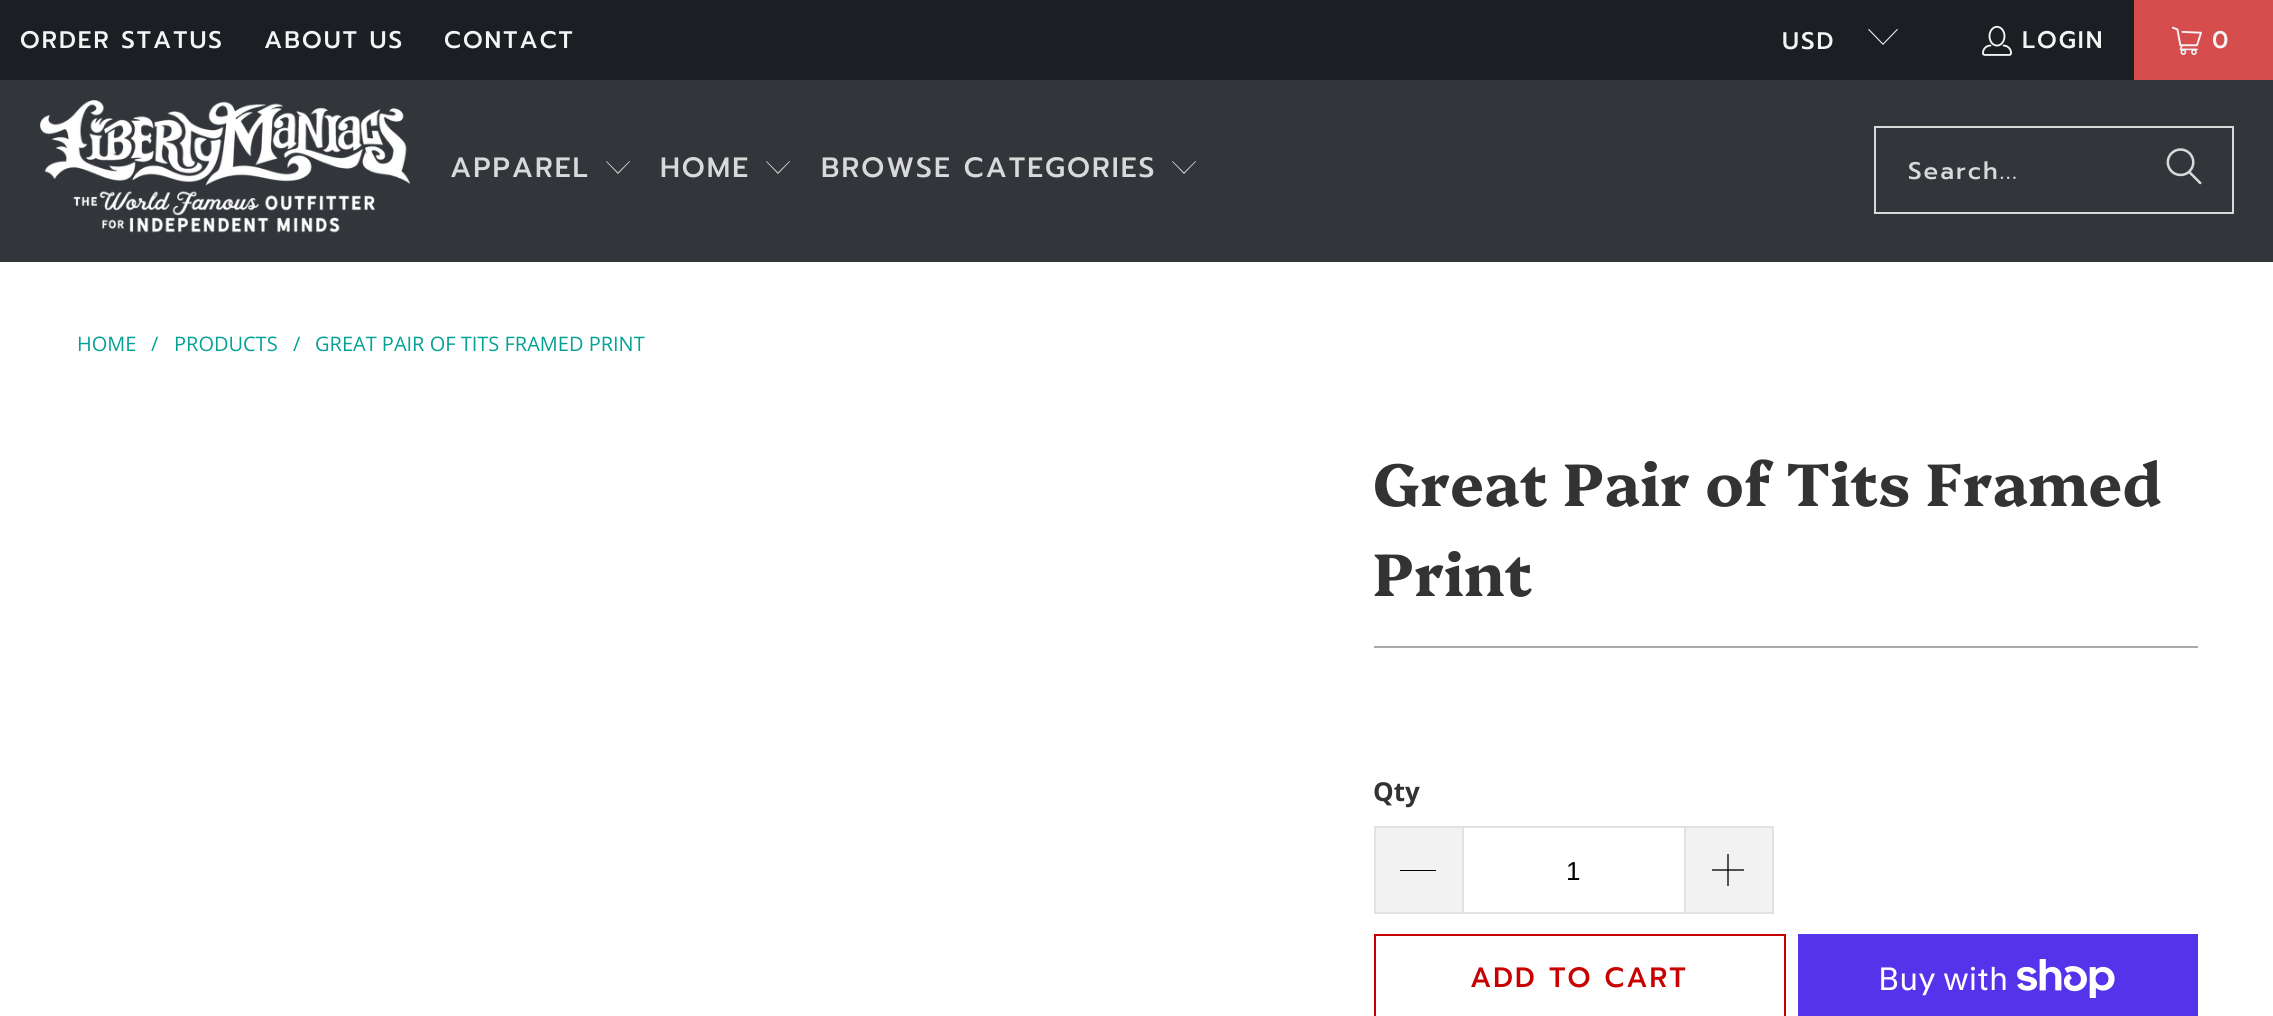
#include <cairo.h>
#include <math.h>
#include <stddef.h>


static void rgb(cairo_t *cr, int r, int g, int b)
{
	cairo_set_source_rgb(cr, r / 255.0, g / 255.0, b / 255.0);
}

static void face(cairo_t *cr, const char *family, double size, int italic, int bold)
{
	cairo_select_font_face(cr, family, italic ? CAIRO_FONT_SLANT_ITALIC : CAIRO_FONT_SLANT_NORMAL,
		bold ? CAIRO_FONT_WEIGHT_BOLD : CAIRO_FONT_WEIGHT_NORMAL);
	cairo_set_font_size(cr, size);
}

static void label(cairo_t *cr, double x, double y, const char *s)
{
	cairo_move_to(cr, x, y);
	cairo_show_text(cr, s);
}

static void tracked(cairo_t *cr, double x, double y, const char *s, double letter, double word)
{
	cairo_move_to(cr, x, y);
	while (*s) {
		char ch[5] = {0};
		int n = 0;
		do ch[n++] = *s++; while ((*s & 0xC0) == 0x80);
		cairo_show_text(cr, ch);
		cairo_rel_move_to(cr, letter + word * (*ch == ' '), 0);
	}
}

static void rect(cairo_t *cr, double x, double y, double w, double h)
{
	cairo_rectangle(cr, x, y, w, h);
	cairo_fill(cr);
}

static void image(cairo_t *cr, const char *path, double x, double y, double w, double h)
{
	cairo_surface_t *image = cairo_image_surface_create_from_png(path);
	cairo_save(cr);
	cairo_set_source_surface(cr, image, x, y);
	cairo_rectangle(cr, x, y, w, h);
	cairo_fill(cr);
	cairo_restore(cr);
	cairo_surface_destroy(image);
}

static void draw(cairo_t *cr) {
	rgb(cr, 255, 255, 255);
	cairo_paint(cr);
	rgb(cr, 27, 31, 35);
	rect(cr, 0, 0, 2134, 80);
	face(cr, "Prompt Medium", 24, 0, 0);
	rgb(cr, 244, 244, 244);
	tracked(cr, 20, 48, "ORDER STATUS", 2, 0);
	tracked(cr, 264, 48, "ABOUT US", 2, 0);
	tracked(cr, 444, 48, "CONTACT", 2, 0);
	tracked(cr, 1782, 49, "USD", 2, 0);
	cairo_new_path(cr);
	cairo_move_to(cr, 1883, 45);
	cairo_line_to(cr, 1868, 29.5);
	cairo_line_to(cr, 1869, 29);
	cairo_line_to(cr, 1883, 43.5);
	cairo_line_to(cr, 1897, 29);
	cairo_line_to(cr, 1898, 29.5);
	cairo_close_path(cr);
	cairo_fill(cr);
	image(cr, "image0.png", 1982, 25, 30, 31);
	tracked(cr, 2022, 48, "LOGIN", 2, 0);
	rgb(cr, 213, 77, 77);
	rect(cr, 2134, 0, 139, 80);
	image(cr, "image1.png", 2172, 26, 30, 29);
	rgb(cr, 244, 244, 244);
	tracked(cr, 2212, 48, "0", 2, 0);
	rgb(cr, 50, 53, 57);
	rect(cr, 0, 80, 2273, 182);
	image(cr, "image2.png", 40, 100, 370, 133);
	face(cr, "Prompt Medium", 28, 0, 0);
	rgb(cr, 217, 217, 217);
	tracked(cr, 450, 177, "APPAREL", 2, 0);
	cairo_new_path(cr);
	cairo_move_to(cr, 618, 174);
	cairo_line_to(cr, 606, 161.5);
	cairo_line_to(cr, 606.5, 161);
	cairo_line_to(cr, 618, 172.5);
	cairo_line_to(cr, 629.5, 161);
	cairo_line_to(cr, 630, 161.5);
	cairo_close_path(cr);
	cairo_fill(cr);
	tracked(cr, 660, 177, "HOME", 2, 0);
	cairo_new_path(cr);
	cairo_move_to(cr, 778, 174);
	cairo_line_to(cr, 766, 161.5);
	cairo_line_to(cr, 766.5, 161);
	cairo_line_to(cr, 778, 172.5);
	cairo_line_to(cr, 789.5, 161);
	cairo_line_to(cr, 790, 161.5);
	cairo_close_path(cr);
	cairo_fill(cr);
	tracked(cr, 821, 177, "BROWSE CATEGORIES", 2, 0);
	cairo_new_path(cr);
	cairo_move_to(cr, 1184, 174);
	cairo_line_to(cr, 1172, 161.5);
	cairo_line_to(cr, 1172.5, 161);
	cairo_line_to(cr, 1184, 172.5);
	cairo_line_to(cr, 1195.5, 161);
	cairo_line_to(cr, 1196, 161.5);
	cairo_close_path(cr);
	cairo_fill(cr);
	cairo_rectangle(cr, 1875, 127, 358, 86);
	cairo_stroke(cr);
	face(cr, "Prompt Medium", 24, 0, 0);
	tracked(cr, 1908, 179, "Search...", 2, 0);
	image(cr, "image3.png", 2166, 148, 36, 37);
	face(cr, "Open Sans", 20, 0, 0);
	rgb(cr, 3, 161, 150);
	label(cr, 77, 351, "HOME");
	label(cr, 151, 351, "/");
	label(cr, 174, 351, "PRODUCTS");
	label(cr, 293, 351, "/");
	label(cr, 315, 351, "GREAT PAIR OF TITS FRAMED PRINT");
	face(cr, "Platypi", 60, 0, 1);
	rgb(cr, 51, 51, 51);
	label(cr, 1373, 506, "Great Pair of Tits Framed");
	label(cr, 1373, 596, "Print");
	rgb(cr, 170, 170, 170);
	rect(cr, 1374, 646, 824, 2);
	face(cr, "Open Sans", 26, 0, 1);
	rgb(cr, 51, 51, 51);
	label(cr, 1373, 801, "Qty");
	rgb(cr, 242, 242, 242);
	rect(cr, 1376, 828, 86, 84);
	rgb(cr, 226, 226, 226);
	rect(cr, 1374, 826, 88, 2);
	rect(cr, 1374, 912, 88, 2);
	rect(cr, 1374, 826, 2, 88);
	rgb(cr, 0, 0, 0);
	rect(cr, 1400, 870, 36, 1);
	cairo_rectangle(cr, 1463, 827, 222, 86);
	rgb(cr, 226, 226, 226);
	cairo_stroke(cr);
	face(cr, "Liberation Sans", 26, 0, 0);
	rgb(cr, 0, 0, 0);
	label(cr, 1566, 880, "1");
	rgb(cr, 242, 242, 242);
	rect(cr, 1686, 828, 86, 84);
	rgb(cr, 226, 226, 226);
	rect(cr, 1686, 826, 88, 2);
	rect(cr, 1772, 826, 2, 88);
	rect(cr, 1686, 912, 88, 2);
	image(cr, "image4.png", 1712, 854, 32, 32);
	cairo_rectangle(cr, 1375, 935, 410, 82);
	rgb(cr, 200, 0, 0);
	cairo_stroke(cr);
	face(cr, "Prompt Medium", 28, 0, 0);
	tracked(cr, 1470, 987, "ADD TO CART", 2, 0);
	rgb(cr, 84, 51, 235);
	rect(cr, 1798, 934, 400, 82);
	face(cr, "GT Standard", 32, 0, 0);
	rgb(cr, 255, 255, 255);
	label(cr, 1878, 990, "Buy with");
	image(cr, "image5.png", 2017, 959, 98, 39);
}

int main(void) {
	cairo_surface_t *surface = cairo_image_surface_create(CAIRO_FORMAT_RGB24, 2273, 1016);
	cairo_t *cr = cairo_create(surface);
	cairo_font_options_t *options = cairo_font_options_create();
	cairo_font_options_set_hint_metrics(options, CAIRO_HINT_METRICS_OFF);
	cairo_font_options_set_hint_style(options, CAIRO_HINT_STYLE_NONE);
	cairo_set_font_options(cr, options);
	cairo_set_miter_limit(cr, 4);
	draw(cr);
	cairo_surface_write_to_png(surface, "render.png");
	cairo_font_options_destroy(options);
	cairo_destroy(cr);
	cairo_surface_destroy(surface);
	return 0;
}
